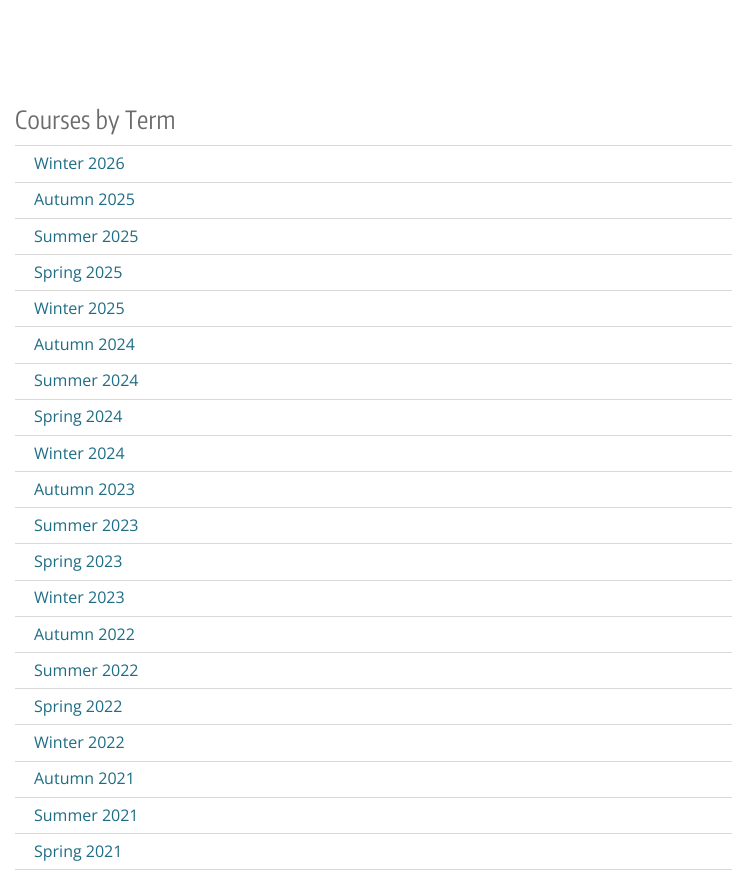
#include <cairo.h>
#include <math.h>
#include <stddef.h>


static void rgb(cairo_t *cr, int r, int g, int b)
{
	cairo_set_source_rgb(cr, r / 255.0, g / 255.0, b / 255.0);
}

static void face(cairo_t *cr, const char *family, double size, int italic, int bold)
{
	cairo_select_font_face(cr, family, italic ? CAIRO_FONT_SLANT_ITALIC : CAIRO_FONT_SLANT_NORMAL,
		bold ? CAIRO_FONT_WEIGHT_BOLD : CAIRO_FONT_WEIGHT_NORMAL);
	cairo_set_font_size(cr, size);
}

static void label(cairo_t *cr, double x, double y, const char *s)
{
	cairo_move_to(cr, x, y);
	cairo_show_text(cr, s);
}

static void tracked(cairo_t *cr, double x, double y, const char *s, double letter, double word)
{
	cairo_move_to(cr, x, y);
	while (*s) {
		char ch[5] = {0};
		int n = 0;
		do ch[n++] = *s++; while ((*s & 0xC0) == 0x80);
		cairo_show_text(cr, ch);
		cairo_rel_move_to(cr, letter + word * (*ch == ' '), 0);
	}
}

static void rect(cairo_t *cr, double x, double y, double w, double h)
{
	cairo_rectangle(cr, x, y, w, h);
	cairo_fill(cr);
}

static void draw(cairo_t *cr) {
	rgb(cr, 255, 255, 255);
	cairo_paint(cr);
	face(cr, "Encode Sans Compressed", 25, 0, 0);
	rgb(cr, 107, 107, 107);
	tracked(cr, 15, 129, "Courses by Term", 0.25, 0);
	rgb(cr, 217, 217, 217);
	rect(cr, 15, 145, 717, 1);
	face(cr, "Open Sans", 16, 0, 0);
	rgb(cr, 30, 109, 133);
	label(cr, 34, 169, "Winter 2026");
	rgb(cr, 217, 217, 217);
	rect(cr, 15, 182, 717, 1);
	rgb(cr, 30, 109, 133);
	label(cr, 34, 205, "Autumn 2025");
	rgb(cr, 217, 217, 217);
	rect(cr, 15, 218, 717, 1);
	rgb(cr, 30, 109, 133);
	label(cr, 34, 242, "Summer 2025");
	rgb(cr, 217, 217, 217);
	rect(cr, 15, 254, 717, 1);
	rgb(cr, 30, 109, 133);
	label(cr, 34, 278, "Spring 2025");
	rgb(cr, 217, 217, 217);
	rect(cr, 15, 290, 717, 1);
	rgb(cr, 30, 109, 133);
	label(cr, 34, 314, "Winter 2025");
	rgb(cr, 217, 217, 217);
	rect(cr, 15, 326, 717, 1);
	rgb(cr, 30, 109, 133);
	label(cr, 34, 350, "Autumn 2024");
	rgb(cr, 217, 217, 217);
	rect(cr, 15, 363, 717, 1);
	rgb(cr, 30, 109, 133);
	label(cr, 34, 386, "Summer 2024");
	rgb(cr, 217, 217, 217);
	rect(cr, 15, 399, 717, 1);
	rgb(cr, 30, 109, 133);
	label(cr, 34, 422, "Spring 2024");
	rgb(cr, 217, 217, 217);
	rect(cr, 15, 435, 717, 1);
	rgb(cr, 30, 109, 133);
	label(cr, 34, 459, "Winter 2024");
	rgb(cr, 217, 217, 217);
	rect(cr, 15, 471, 717, 1);
	rgb(cr, 30, 109, 133);
	label(cr, 34, 495, "Autumn 2023");
	rgb(cr, 217, 217, 217);
	rect(cr, 15, 507, 717, 1);
	rgb(cr, 30, 109, 133);
	label(cr, 34, 531, "Summer 2023");
	rgb(cr, 217, 217, 217);
	rect(cr, 15, 543, 717, 1);
	rgb(cr, 30, 109, 133);
	label(cr, 34, 567, "Spring 2023");
	rgb(cr, 217, 217, 217);
	rect(cr, 15, 580, 717, 1);
	rgb(cr, 30, 109, 133);
	label(cr, 34, 603, "Winter 2023");
	rgb(cr, 217, 217, 217);
	rect(cr, 15, 616, 717, 1);
	rgb(cr, 30, 109, 133);
	label(cr, 34, 640, "Autumn 2022");
	rgb(cr, 217, 217, 217);
	rect(cr, 15, 652, 717, 1);
	rgb(cr, 30, 109, 133);
	label(cr, 34, 676, "Summer 2022");
	rgb(cr, 217, 217, 217);
	rect(cr, 15, 688, 717, 1);
	rgb(cr, 30, 109, 133);
	label(cr, 34, 712, "Spring 2022");
	rgb(cr, 217, 217, 217);
	rect(cr, 15, 724, 717, 1);
	rgb(cr, 30, 109, 133);
	label(cr, 34, 748, "Winter 2022");
	rgb(cr, 217, 217, 217);
	rect(cr, 15, 761, 717, 1);
	rgb(cr, 30, 109, 133);
	label(cr, 34, 784, "Autumn 2021");
	rgb(cr, 217, 217, 217);
	rect(cr, 15, 797, 717, 1);
	rgb(cr, 30, 109, 133);
	label(cr, 34, 821, "Summer 2021");
	rgb(cr, 217, 217, 217);
	rect(cr, 15, 833, 717, 1);
	rgb(cr, 30, 109, 133);
	label(cr, 34, 857, "Spring 2021");
	rgb(cr, 217, 217, 217);
	rect(cr, 15, 869, 717, 1);
}

int main(void) {
	cairo_surface_t *surface = cairo_image_surface_create(CAIRO_FORMAT_RGB24, 747, 874);
	cairo_t *cr = cairo_create(surface);
	cairo_font_options_t *options = cairo_font_options_create();
	cairo_font_options_set_hint_metrics(options, CAIRO_HINT_METRICS_OFF);
	cairo_font_options_set_hint_style(options, CAIRO_HINT_STYLE_NONE);
	cairo_set_font_options(cr, options);
	cairo_set_miter_limit(cr, 4);
	draw(cr);
	cairo_surface_write_to_png(surface, "render.png");
	cairo_font_options_destroy(options);
	cairo_destroy(cr);
	cairo_surface_destroy(surface);
	return 0;
}
